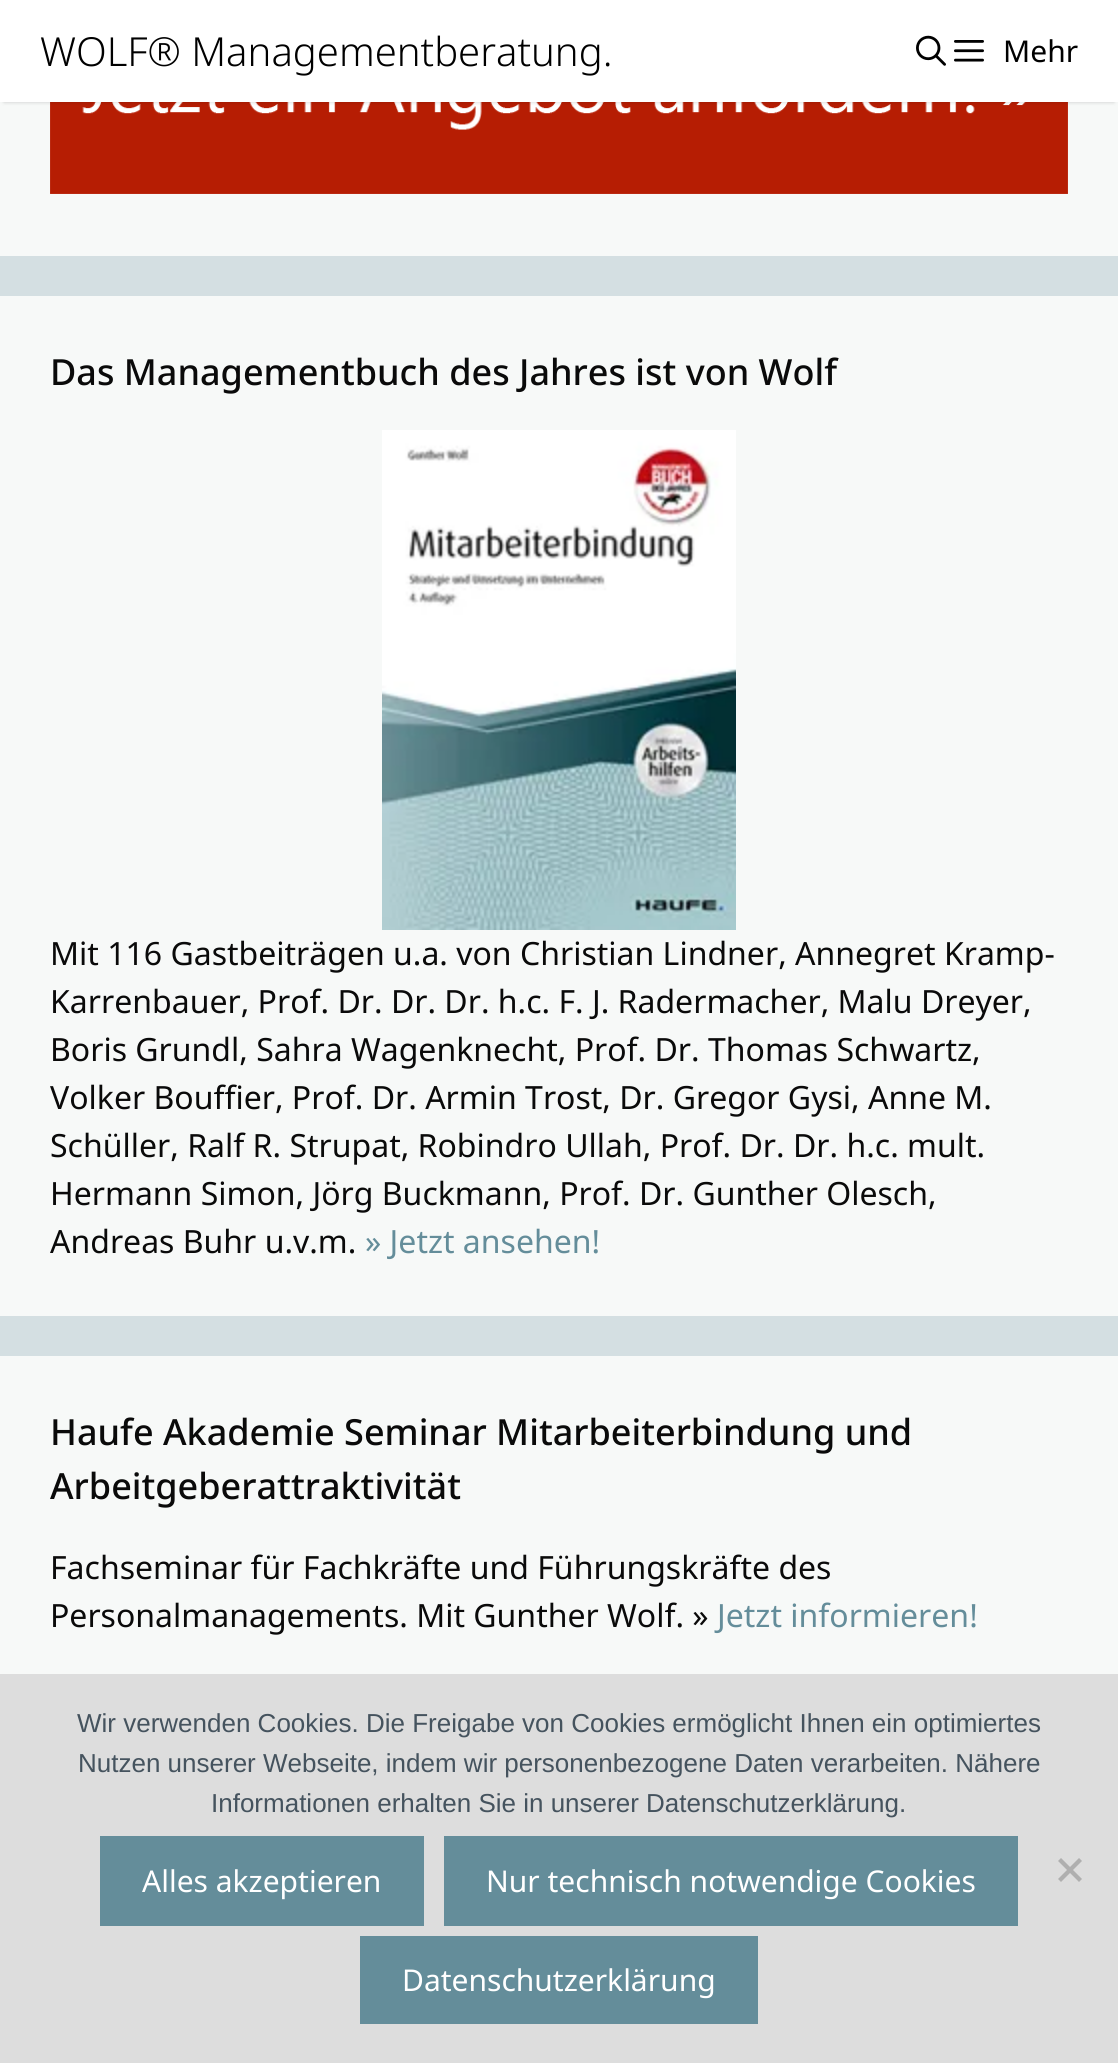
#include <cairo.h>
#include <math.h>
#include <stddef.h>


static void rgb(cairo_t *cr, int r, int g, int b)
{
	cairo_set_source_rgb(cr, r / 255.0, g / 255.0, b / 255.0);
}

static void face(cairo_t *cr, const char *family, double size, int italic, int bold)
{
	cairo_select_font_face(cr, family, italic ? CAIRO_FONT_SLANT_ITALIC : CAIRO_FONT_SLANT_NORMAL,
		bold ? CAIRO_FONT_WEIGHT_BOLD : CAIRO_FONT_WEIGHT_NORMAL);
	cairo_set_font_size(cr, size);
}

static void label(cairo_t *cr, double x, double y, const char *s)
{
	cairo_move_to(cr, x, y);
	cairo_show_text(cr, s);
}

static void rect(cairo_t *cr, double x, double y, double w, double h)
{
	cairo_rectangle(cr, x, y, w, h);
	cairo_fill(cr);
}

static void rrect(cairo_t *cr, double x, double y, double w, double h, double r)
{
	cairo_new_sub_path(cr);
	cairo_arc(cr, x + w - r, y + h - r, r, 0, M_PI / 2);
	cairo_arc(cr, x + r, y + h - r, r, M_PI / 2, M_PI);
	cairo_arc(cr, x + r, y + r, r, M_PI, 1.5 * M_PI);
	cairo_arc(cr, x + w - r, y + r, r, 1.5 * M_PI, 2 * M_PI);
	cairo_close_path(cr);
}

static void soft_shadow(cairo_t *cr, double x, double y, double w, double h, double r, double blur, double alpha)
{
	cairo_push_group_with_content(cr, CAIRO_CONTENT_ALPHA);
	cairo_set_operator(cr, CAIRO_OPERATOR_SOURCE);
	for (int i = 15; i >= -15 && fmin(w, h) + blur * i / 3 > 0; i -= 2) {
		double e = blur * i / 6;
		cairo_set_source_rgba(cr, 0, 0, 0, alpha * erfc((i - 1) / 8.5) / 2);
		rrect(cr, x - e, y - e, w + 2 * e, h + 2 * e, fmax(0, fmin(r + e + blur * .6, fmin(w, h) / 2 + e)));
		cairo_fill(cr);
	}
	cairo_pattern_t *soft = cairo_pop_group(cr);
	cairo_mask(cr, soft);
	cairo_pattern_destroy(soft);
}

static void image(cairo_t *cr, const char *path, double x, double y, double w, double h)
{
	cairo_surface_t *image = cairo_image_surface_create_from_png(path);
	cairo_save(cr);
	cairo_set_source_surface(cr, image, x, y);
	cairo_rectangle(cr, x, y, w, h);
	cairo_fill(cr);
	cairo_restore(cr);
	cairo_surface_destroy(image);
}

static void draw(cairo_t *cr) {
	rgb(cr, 212, 223, 226);
	cairo_paint(cr);
	rgb(cr, 247, 249, 248);
	rect(cr, 0, 102, 1118, 154);
	image(cr, "image2.png", 50, 102, 1018, 92);
	rgb(cr, 0, 0, 0);
	soft_shadow(cr, 4, 8, 1110, 94, 0, 2, 0.2);
	rgb(cr, 255, 255, 255);
	rect(cr, 0, 0, 1118, 102);
	face(cr, "Noto Sans Light", 40, 0, 0);
	rgb(cr, 0, 0, 0);
	label(cr, 40, 66, "WOLF® Managementberatung.");
	image(cr, "image0.png", 916, 35, 30, 31);
	image(cr, "image1.png", 954, 40, 30, 22);
	face(cr, "Noto Sans", 30, 0, 0);
	label(cr, 1003, 62, "Mehr");
	rgb(cr, 247, 249, 248);
	rect(cr, 0, 296, 1118, 1020);
	face(cr, "Noto Sans Medium", 36, 0, 0);
	rgb(cr, 10, 10, 10);
	label(cr, 50, 385, "Das Managementbuch des Jahres ist von Wolf");
	image(cr, "image3.png", 382, 430, 354, 500);
	face(cr, "Noto Sans", 32, 0, 0);
	label(cr, 50, 965, "Mit 116 Gastbeiträgen u.a. von Christian Lindner, Annegret Kramp-");
	label(cr, 50, 1013, "Karrenbauer, Prof. Dr. Dr. Dr. h.c. F. J. Radermacher, Malu Dreyer,");
	label(cr, 50, 1061, "Boris Grundl, Sahra Wagenknecht, Prof. Dr. Thomas Schwartz,");
	label(cr, 50, 1109, "Volker Bouffier, Prof. Dr. Armin Trost, Dr. Gregor Gysi, Anne M.");
	label(cr, 50, 1157, "Schüller, Ralf R. Strupat, Robindro Ullah, Prof. Dr. Dr. h.c. mult.");
	label(cr, 50, 1205, "Hermann Simon, Jörg Buckmann, Prof. Dr. Gunther Olesch,");
	label(cr, 50, 1253, "Andreas Buhr u.v.m.");
	rgb(cr, 100, 141, 154);
	label(cr, 365, 1253, "» Jetzt ansehen!");
	rgb(cr, 247, 249, 248);
	rect(cr, 0, 1356, 1118, 318);
	face(cr, "Noto Sans Medium", 36, 0, 0);
	rgb(cr, 10, 10, 10);
	label(cr, 50, 1445, "Haufe Akademie Seminar Mitarbeiterbindung und");
	label(cr, 50, 1499, "Arbeitgeberattraktivität");
	face(cr, "Noto Sans", 32, 0, 0);
	label(cr, 50, 1579, "Fachseminar für Fachkräfte und Führungskräfte des");
	label(cr, 50, 1627, "Personalmanagements. Mit Gunther Wolf. »");
	rgb(cr, 100, 141, 154);
	label(cr, 717, 1627, "Jetzt informieren!");
	rgb(cr, 221, 221, 221);
	rect(cr, 0, 1674, 1118, 389);
	face(cr, "Liberation Sans", 26, 0, 0);
	rgb(cr, 69, 83, 94);
	label(cr, 77, 1732, "Wir verwenden Cookies. Die Freigabe von Cookies ermöglicht Ihnen ein optimiertes");
	label(cr, 78, 1772, "Nutzen unserer Webseite, indem wir personenbezogene Daten verarbeiten. Nähere");
	label(cr, 211, 1812, "Informationen erhalten Sie in unserer Datenschutzerklärung.");
	rgb(cr, 100, 141, 154);
	rect(cr, 100, 1836, 324, 90);
	face(cr, "Noto Sans", 30, 0, 0);
	rgb(cr, 255, 255, 255);
	label(cr, 142, 1892, "Alles akzeptieren");
	rgb(cr, 100, 141, 154);
	rect(cr, 444, 1836, 574, 90);
	rgb(cr, 255, 255, 255);
	label(cr, 486, 1892, "Nur technisch notwendige Cookies");
	rgb(cr, 100, 141, 154);
	rect(cr, 360, 1936, 398, 88);
	rgb(cr, 255, 255, 255);
	label(cr, 402, 1991, "Datenschutzerklärung");
	rgb(cr, 175, 175, 175);
	cairo_new_path(cr);
	cairo_move_to(cr, 1079, 1858);
	cairo_line_to(cr, 1082, 1861);
	cairo_line_to(cr, 1061, 1882);
	cairo_line_to(cr, 1058, 1879);
	cairo_close_path(cr);
	cairo_fill(cr);
	cairo_new_path(cr);
	cairo_move_to(cr, 1058, 1861);
	cairo_line_to(cr, 1061, 1858);
	cairo_line_to(cr, 1082, 1879);
	cairo_line_to(cr, 1079, 1882);
	cairo_close_path(cr);
	cairo_fill(cr);
}

int main(void) {
	cairo_surface_t *surface = cairo_image_surface_create(CAIRO_FORMAT_RGB24, 1118, 2063);
	cairo_t *cr = cairo_create(surface);
	cairo_font_options_t *options = cairo_font_options_create();
	cairo_font_options_set_hint_metrics(options, CAIRO_HINT_METRICS_OFF);
	cairo_font_options_set_hint_style(options, CAIRO_HINT_STYLE_NONE);
	cairo_set_font_options(cr, options);
	cairo_set_miter_limit(cr, 4);
	draw(cr);
	cairo_surface_write_to_png(surface, "render.png");
	cairo_font_options_destroy(options);
	cairo_destroy(cr);
	cairo_surface_destroy(surface);
	return 0;
}
